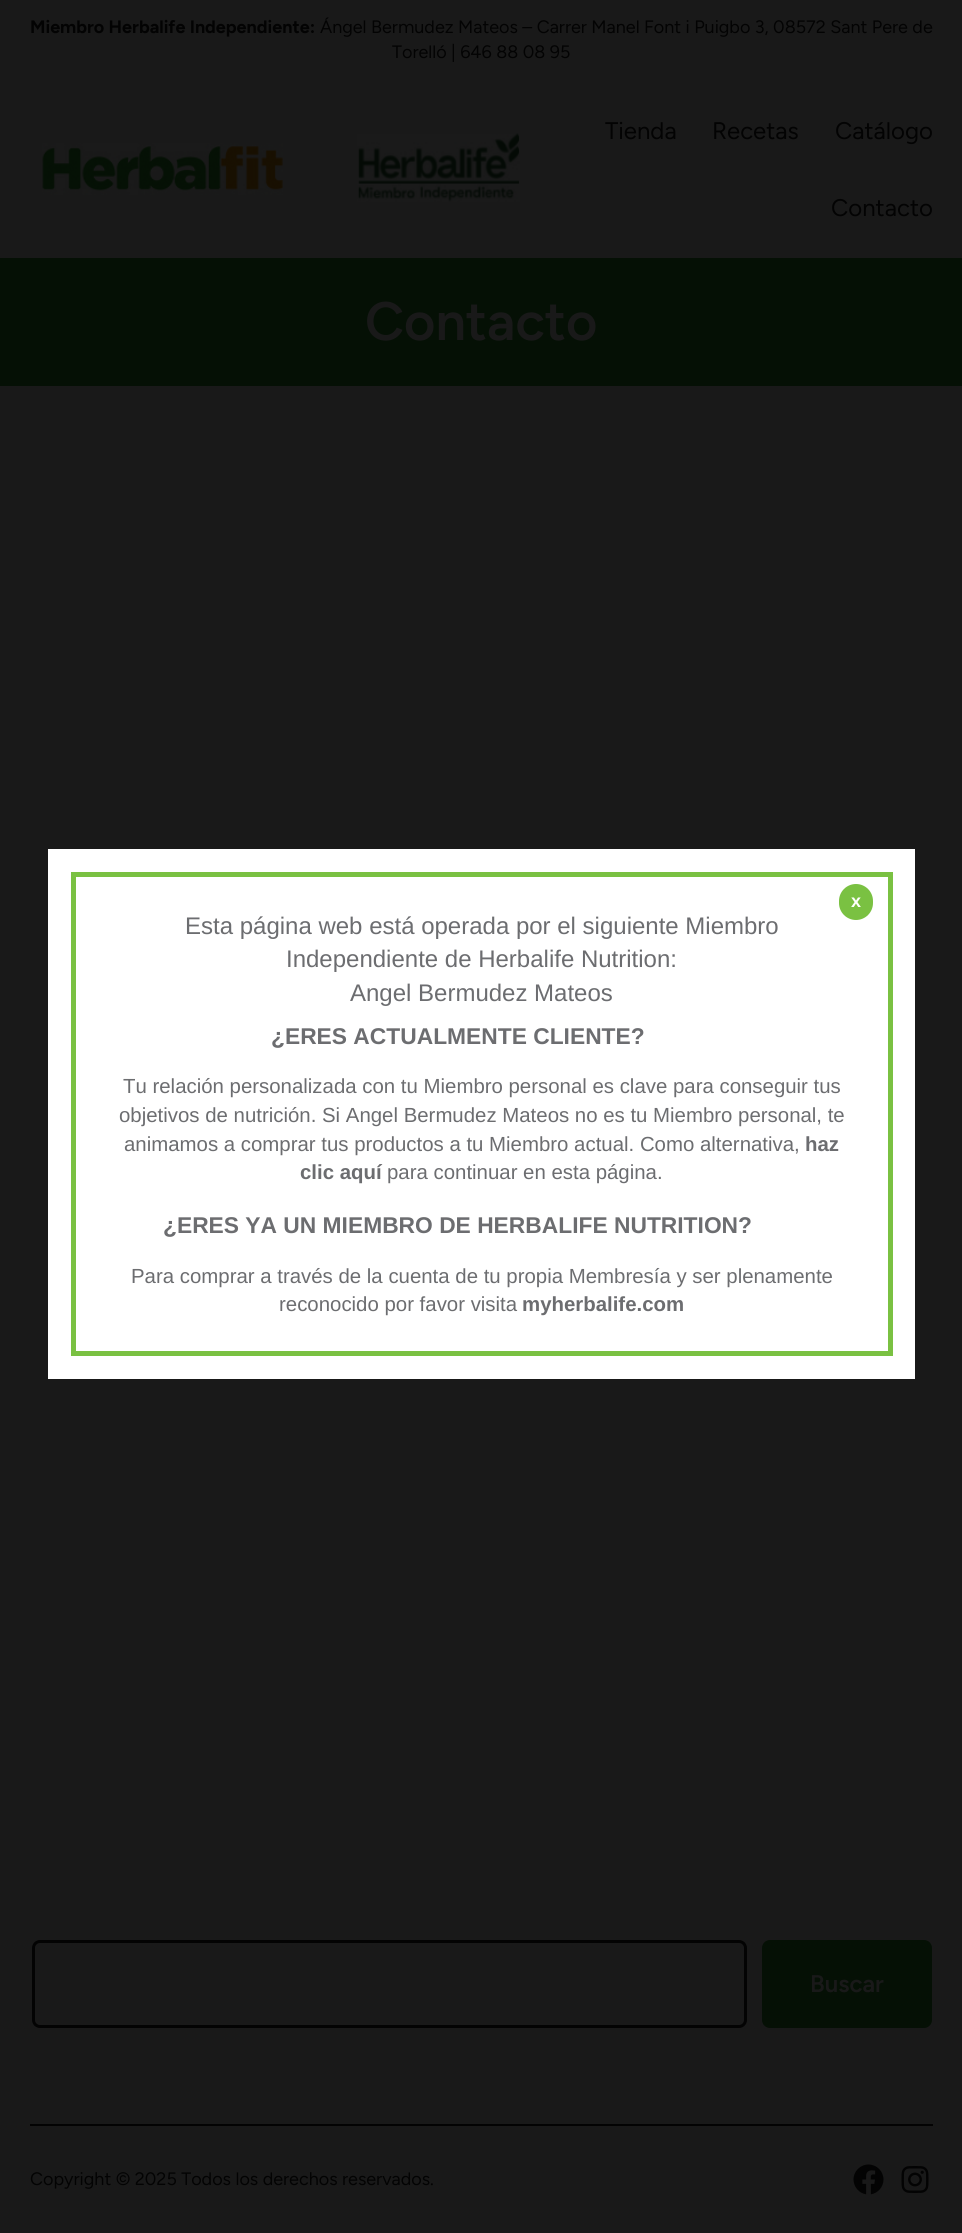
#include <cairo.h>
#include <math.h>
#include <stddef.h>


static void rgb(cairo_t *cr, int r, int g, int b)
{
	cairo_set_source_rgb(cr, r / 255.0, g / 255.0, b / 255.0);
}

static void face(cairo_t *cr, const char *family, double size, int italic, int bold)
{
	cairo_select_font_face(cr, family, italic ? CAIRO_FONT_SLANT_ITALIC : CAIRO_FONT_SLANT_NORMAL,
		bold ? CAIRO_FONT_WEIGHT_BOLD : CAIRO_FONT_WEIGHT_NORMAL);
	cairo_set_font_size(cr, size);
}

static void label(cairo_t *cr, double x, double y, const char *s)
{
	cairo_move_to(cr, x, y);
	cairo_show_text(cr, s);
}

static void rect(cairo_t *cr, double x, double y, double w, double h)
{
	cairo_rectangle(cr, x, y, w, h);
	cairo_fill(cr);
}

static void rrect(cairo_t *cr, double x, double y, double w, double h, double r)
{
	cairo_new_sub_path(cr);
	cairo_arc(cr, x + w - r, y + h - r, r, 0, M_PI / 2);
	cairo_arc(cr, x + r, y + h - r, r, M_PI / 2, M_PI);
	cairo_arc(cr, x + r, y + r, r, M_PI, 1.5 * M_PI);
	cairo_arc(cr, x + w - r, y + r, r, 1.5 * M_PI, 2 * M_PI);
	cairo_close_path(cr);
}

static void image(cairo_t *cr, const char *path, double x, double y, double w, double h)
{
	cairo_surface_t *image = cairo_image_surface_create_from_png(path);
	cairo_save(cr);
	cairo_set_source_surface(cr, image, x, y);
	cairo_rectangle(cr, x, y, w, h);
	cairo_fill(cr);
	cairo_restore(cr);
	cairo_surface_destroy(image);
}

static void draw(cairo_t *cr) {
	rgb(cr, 25, 25, 25);
	cairo_paint(cr);
	face(cr, "Figtree", 18, 0, 1);
	rgb(cr, 3, 3, 3);
	label(cr, 30, 33, "Miembro Herbalife Independiente:");
	face(cr, "Figtree", 18, 0, 0);
	label(cr, 320, 33, "Ángel Bermudez Mateos – Carrer Manel Font i Puigbo 3, 08572 Sant Pere de");
	label(cr, 392, 58, "Torelló | 646 88 08 95");
	image(cr, "image0.png", 42, 143, 241, 52);
	image(cr, "image1.png", 357, 133, 163, 69);
	face(cr, "Figtree", 24, 0, 0);
	label(cr, 605, 139, "Tienda");
	label(cr, 712, 139, "Recetas");
	label(cr, 835, 139, "Catálogo");
	label(cr, 831, 216, "Contacto");
	rgb(cr, 5, 16, 5);
	rect(cr, 0, 258, 962, 128);
	face(cr, "Figtree SemiBold", 54, 0, 0);
	rgb(cr, 25, 25, 25);
	label(cr, 365, 340, "Contacto");
	rrect(cr, 33.5, 1941.5, 712, 85, 6.5);
	rgb(cr, 3, 3, 3);
	cairo_set_line_width(cr, 3);
	cairo_stroke(cr);
	rgb(cr, 5, 16, 5);
	rrect(cr, 762, 1940, 170, 88, 8);
	cairo_fill(cr);
	face(cr, "Figtree SemiBold", 24, 0, 0);
	rgb(cr, 25, 25, 25);
	label(cr, 810, 1992, "Buscar");
	rgb(cr, 3, 3, 3);
	rect(cr, 30, 2124, 903, 2);
	face(cr, "Figtree", 18, 0, 0);
	label(cr, 30, 2185, "Copyright © 2025 Todos los derechos reservados.");
	image(cr, "image2.png", 853, 2164, 31, 31);
	image(cr, "image3.png", 901, 2166, 28, 27);
	rgb(cr, 255, 255, 255);
	rect(cr, 48, 849, 867, 530);
	cairo_rectangle(cr, 73.5, 874.5, 817, 479);
	rgb(cr, 122, 193, 66);
	cairo_set_line_width(cr, 5);
	cairo_stroke(cr);
	rrect(cr, 839, 884, 34, 36, 17);
	cairo_fill(cr);
	face(cr, "Liberation Sans", 18, 0, 1);
	rgb(cr, 255, 255, 255);
	label(cr, 851, 907, "x");
	face(cr, "Liberation Sans", 24, 0, 0);
	rgb(cr, 108, 109, 112);
	label(cr, 185, 934, "Esta página web está operada por el siguiente Miembro");
	label(cr, 286, 967, "Independiente de Herbalife Nutrition:");
	label(cr, 350, 1001, "Angel Bermudez Mateos");
	face(cr, "Liberation Sans", 22.8, 0, 1);
	label(cr, 271, 1044, "¿ERES ACTUALMENTE CLIENTE?");
	face(cr, "Liberation Sans", 20.4, 0, 0);
	label(cr, 123, 1093, "Tu relación personalizada con tu Miembro personal es clave para conseguir tus");
	label(cr, 119, 1122, "objetivos de nutrición. Si Angel Bermudez Mateos no es tu Miembro personal, te");
	label(cr, 124, 1151, "animamos a comprar tus productos a tu Miembro actual. Como alternativa,");
	face(cr, "Liberation Sans", 20.4, 0, 1);
	label(cr, 805, 1151, "haz");
	label(cr, 300, 1179, "clic aquí");
	face(cr, "Liberation Sans", 20.4, 0, 0);
	label(cr, 387, 1179, "para continuar en esta página.");
	face(cr, "Liberation Sans", 22.8, 0, 1);
	label(cr, 163, 1233, "¿ERES YA UN MIEMBRO DE HERBALIFE NUTRITION?");
	face(cr, "Liberation Sans", 20.4, 0, 0);
	label(cr, 131, 1283, "Para comprar a través de la cuenta de tu propia Membresía y ser plenamente");
	label(cr, 279, 1311, "reconocido por favor visita");
	face(cr, "Liberation Sans", 20.4, 0, 1);
	label(cr, 522, 1311, "myherbalife.com");
}

int main(void) {
	cairo_surface_t *surface = cairo_image_surface_create(CAIRO_FORMAT_RGB24, 962, 2233);
	cairo_t *cr = cairo_create(surface);
	cairo_font_options_t *options = cairo_font_options_create();
	cairo_font_options_set_hint_metrics(options, CAIRO_HINT_METRICS_OFF);
	cairo_font_options_set_hint_style(options, CAIRO_HINT_STYLE_NONE);
	cairo_set_font_options(cr, options);
	cairo_set_miter_limit(cr, 4);
	draw(cr);
	cairo_surface_write_to_png(surface, "render.png");
	cairo_font_options_destroy(options);
	cairo_destroy(cr);
	cairo_surface_destroy(surface);
	return 0;
}
